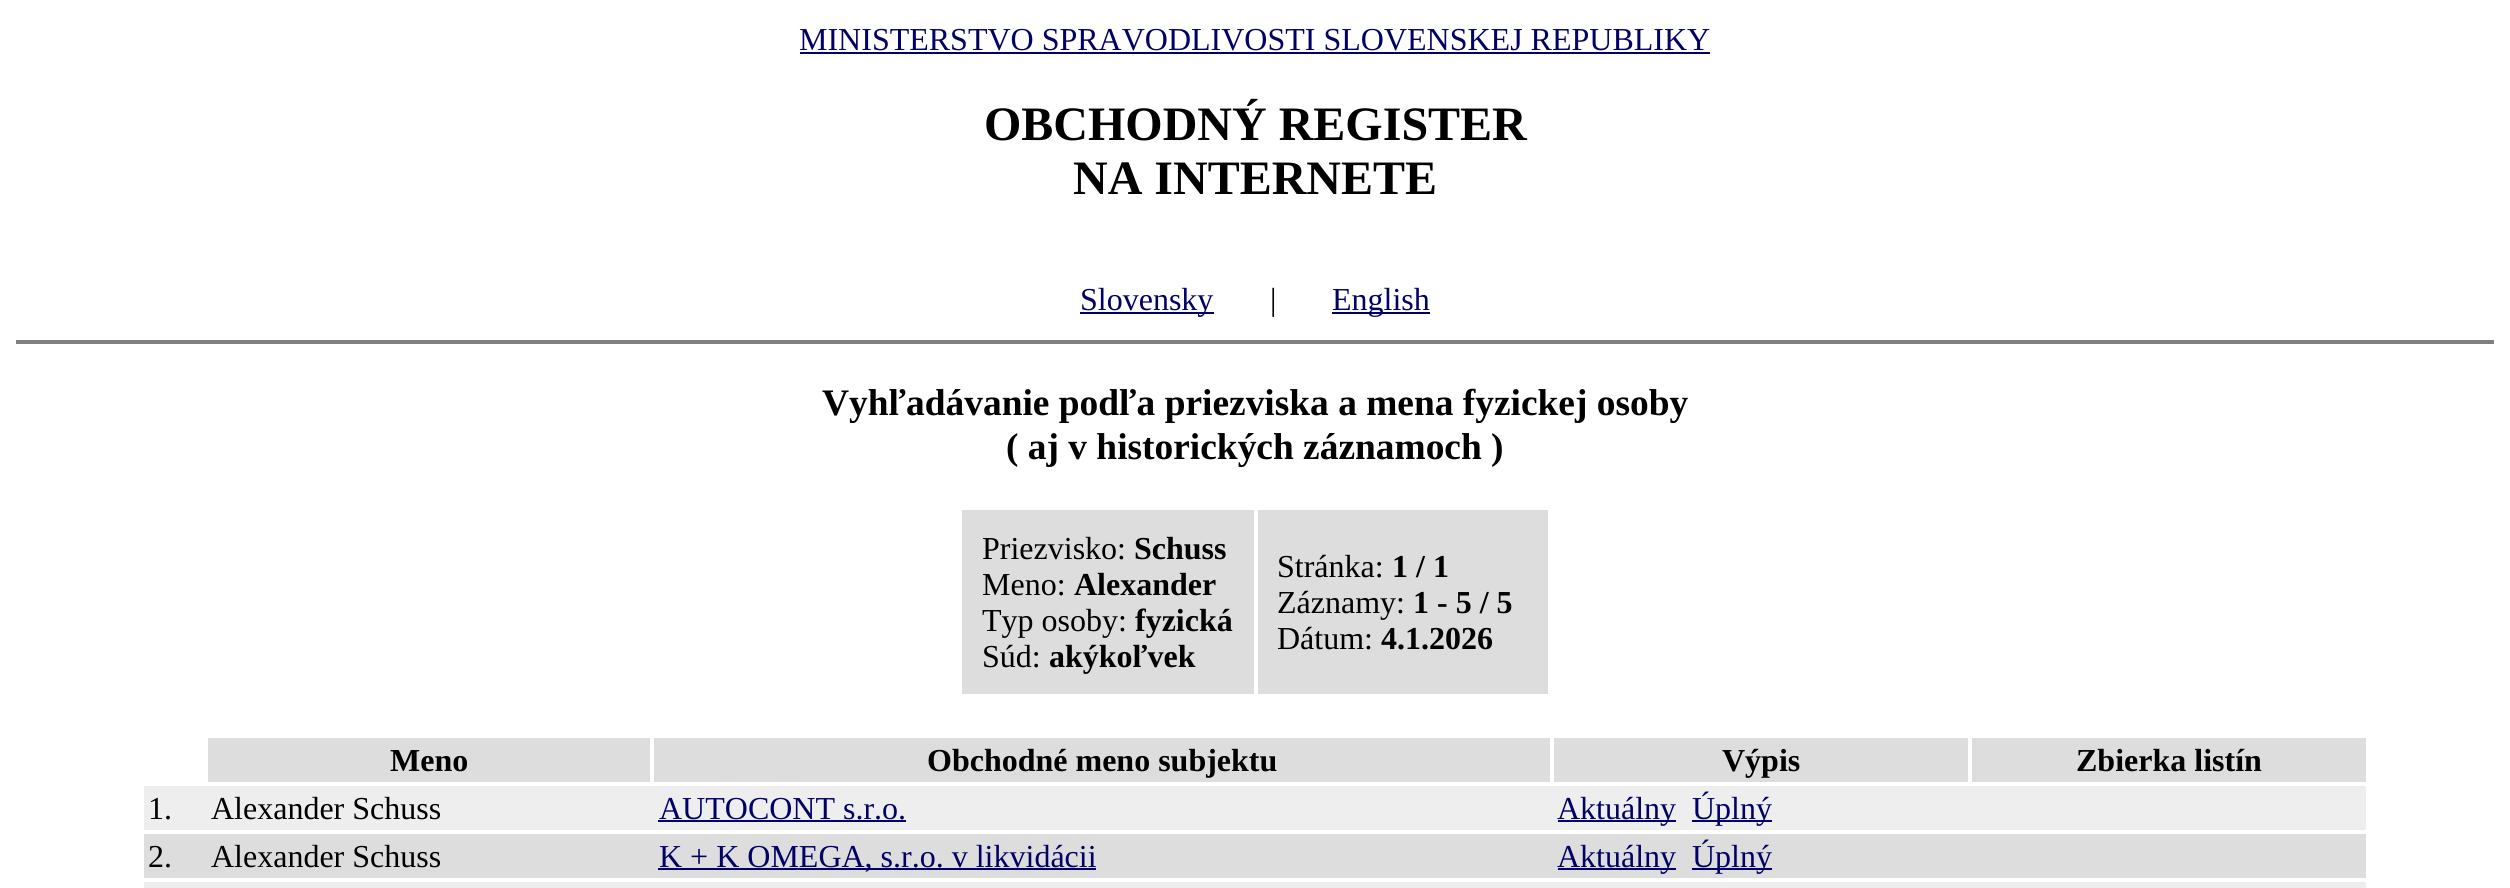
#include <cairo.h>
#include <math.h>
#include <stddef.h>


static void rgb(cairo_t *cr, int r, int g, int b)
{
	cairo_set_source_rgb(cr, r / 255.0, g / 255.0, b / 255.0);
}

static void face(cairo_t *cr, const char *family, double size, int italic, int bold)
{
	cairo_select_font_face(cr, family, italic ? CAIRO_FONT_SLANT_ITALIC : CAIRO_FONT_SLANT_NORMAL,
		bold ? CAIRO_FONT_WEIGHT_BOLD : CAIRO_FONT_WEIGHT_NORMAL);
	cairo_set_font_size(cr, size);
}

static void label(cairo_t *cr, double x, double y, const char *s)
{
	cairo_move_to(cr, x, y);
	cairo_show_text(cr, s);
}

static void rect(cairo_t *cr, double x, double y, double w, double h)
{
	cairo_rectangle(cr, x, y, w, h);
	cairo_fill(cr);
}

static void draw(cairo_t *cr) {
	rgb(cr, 255, 255, 255);
	cairo_paint(cr);
	face(cr, "Liberation Serif", 32, 0, 0);
	rgb(cr, 0, 0, 102);
	label(cr, 799, 50, "MINISTERSTVO SPRAVODLIVOSTI SLOVENSKEJ REPUBLIKY");
	rect(cr, 800, 52, 910, 2);
	face(cr, "Liberation Serif", 48, 0, 1);
	rgb(cr, 0, 0, 0);
	label(cr, 984, 140, "OBCHODNÝ REGISTER");
	label(cr, 1073, 194, "NA INTERNETE");
	rgb(cr, 0, 0, 102);
	rect(cr, 1080, 312, 134, 2);
	face(cr, "Liberation Serif", 32, 0, 0);
	label(cr, 1080, 310, "Slovensky");
	rgb(cr, 0, 0, 0);
	label(cr, 1270, 310, "|");
	rgb(cr, 0, 0, 102);
	rect(cr, 1332, 312, 98, 2);
	label(cr, 1332, 310, "English");
	rgb(cr, 128, 128, 128);
	rect(cr, 16, 340, 2478, 4);
	face(cr, "Liberation Serif", 37.4, 0, 1);
	rgb(cr, 0, 0, 0);
	label(cr, 822, 415, "Vyhľadávanie podľa priezviska a mena fyzickej osoby");
	label(cr, 1006, 459, "( aj v historických záznamoch )");
	rgb(cr, 221, 221, 221);
	rect(cr, 962, 510, 292, 184);
	face(cr, "Liberation Serif", 32, 0, 0);
	rgb(cr, 0, 0, 0);
	label(cr, 982, 559, "Priezvisko:");
	face(cr, "Liberation Serif", 32, 0, 1);
	label(cr, 1134, 559, "Schuss");
	face(cr, "Liberation Serif", 32, 0, 0);
	label(cr, 982, 595, "Meno:");
	face(cr, "Liberation Serif", 32, 0, 1);
	label(cr, 1074, 595, "Alexander");
	face(cr, "Liberation Serif", 32, 0, 0);
	label(cr, 982, 631, "Typ osoby:");
	face(cr, "Liberation Serif", 32, 0, 1);
	label(cr, 1135, 631, "fyzická");
	face(cr, "Liberation Serif", 32, 0, 0);
	label(cr, 982, 667, "Súd:");
	face(cr, "Liberation Serif", 32, 0, 1);
	label(cr, 1049, 667, "akýkoľvek");
	rgb(cr, 221, 221, 221);
	rect(cr, 1258, 510, 290, 184);
	face(cr, "Liberation Serif", 32, 0, 0);
	rgb(cr, 0, 0, 0);
	label(cr, 1277, 577, "Stránka:");
	face(cr, "Liberation Serif", 32, 0, 1);
	label(cr, 1392, 577, "1 / 1");
	face(cr, "Liberation Serif", 32, 0, 0);
	label(cr, 1277, 613, "Záznamy:");
	face(cr, "Liberation Serif", 32, 0, 1);
	label(cr, 1413, 613, "1 - 5 / 5");
	face(cr, "Liberation Serif", 32, 0, 0);
	label(cr, 1277, 649, "Dátum:");
	face(cr, "Liberation Serif", 32, 0, 1);
	label(cr, 1381, 649, "4.1.2026");
	rgb(cr, 221, 221, 221);
	rect(cr, 208, 738, 442, 44);
	rgb(cr, 0, 0, 0);
	label(cr, 390, 771, "Meno");
	rgb(cr, 221, 221, 221);
	rect(cr, 654, 738, 896, 44);
	rgb(cr, 0, 0, 0);
	label(cr, 927, 771, "Obchodné meno subjektu");
	rgb(cr, 221, 221, 221);
	rect(cr, 1554, 738, 414, 44);
	rgb(cr, 0, 0, 0);
	label(cr, 1722, 771, "Výpis");
	rgb(cr, 221, 221, 221);
	rect(cr, 1972, 738, 394, 44);
	rgb(cr, 0, 0, 0);
	label(cr, 2076, 771, "Zbierka listín");
	rgb(cr, 238, 238, 238);
	rect(cr, 144, 786, 2222, 44);
	face(cr, "Liberation Serif", 32, 0, 0);
	rgb(cr, 0, 0, 0);
	label(cr, 148, 819, "1.");
	label(cr, 211, 819, "Alexander Schuss");
	rgb(cr, 0, 0, 102);
	label(cr, 659, 819, "AUTOCONT s.r.o.");
	rect(cr, 658, 820, 248, 2);
	rect(cr, 1558, 820, 118, 2);
	label(cr, 1557, 819, "Aktuálny");
	rect(cr, 1692, 820, 80, 2);
	label(cr, 1692, 819, "Úplný");
	rgb(cr, 221, 221, 221);
	rect(cr, 144, 834, 2222, 44);
	rgb(cr, 0, 0, 0);
	label(cr, 148, 867, "2.");
	label(cr, 211, 867, "Alexander Schuss");
	rgb(cr, 0, 0, 102);
	rect(cr, 658, 868, 438, 2);
	label(cr, 659, 867, "K + K OMEGA, s.r.o. v likvidácii");
	rect(cr, 1558, 868, 118, 2);
	label(cr, 1557, 867, "Aktuálny");
	rect(cr, 1692, 868, 80, 2);
	label(cr, 1692, 867, "Úplný");
	rgb(cr, 238, 238, 238);
	rect(cr, 144, 882, 2222, 6);
}

int main(void) {
	cairo_surface_t *surface = cairo_image_surface_create(CAIRO_FORMAT_RGB24, 2510, 888);
	cairo_t *cr = cairo_create(surface);
	cairo_font_options_t *options = cairo_font_options_create();
	cairo_font_options_set_hint_metrics(options, CAIRO_HINT_METRICS_OFF);
	cairo_font_options_set_hint_style(options, CAIRO_HINT_STYLE_NONE);
	cairo_set_font_options(cr, options);
	cairo_set_miter_limit(cr, 4);
	draw(cr);
	cairo_surface_write_to_png(surface, "render.png");
	cairo_font_options_destroy(options);
	cairo_destroy(cr);
	cairo_surface_destroy(surface);
	return 0;
}
